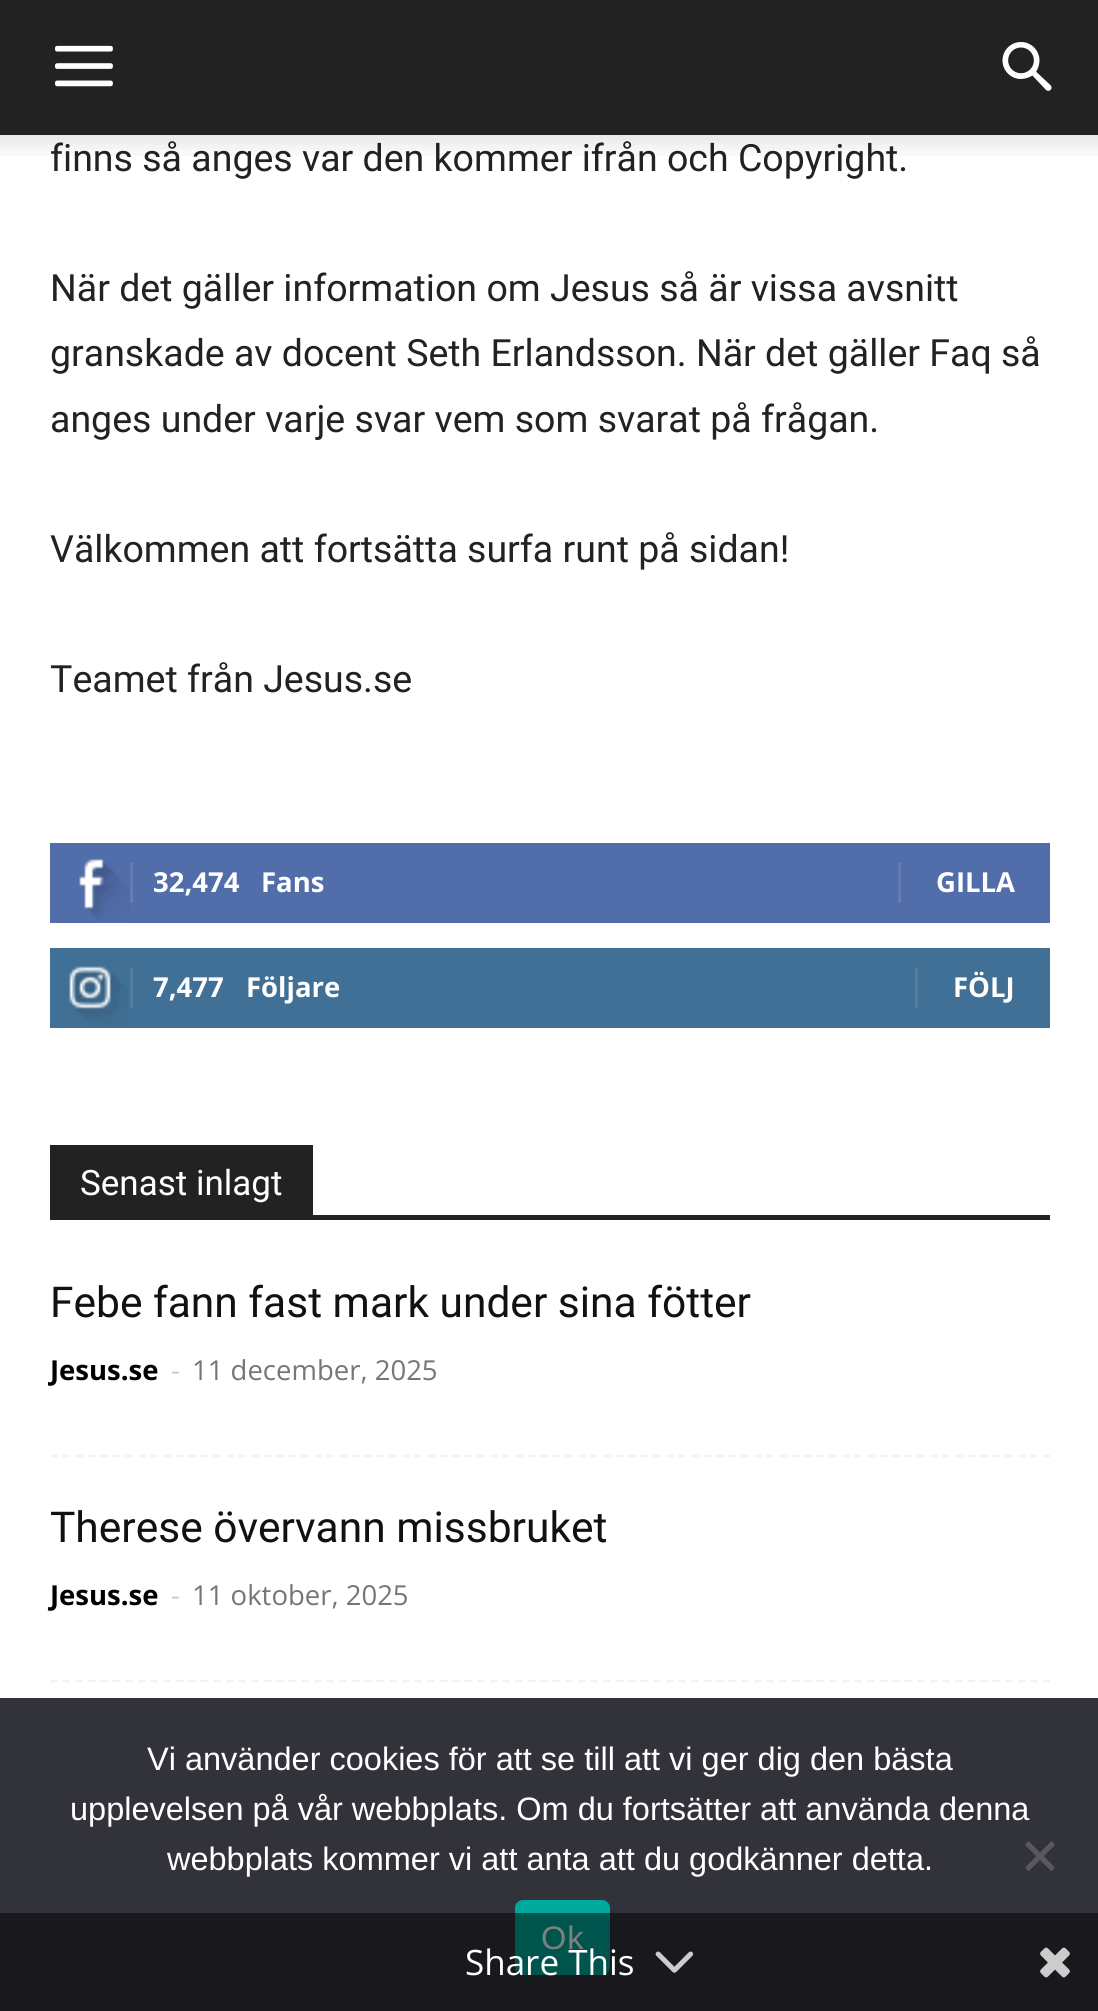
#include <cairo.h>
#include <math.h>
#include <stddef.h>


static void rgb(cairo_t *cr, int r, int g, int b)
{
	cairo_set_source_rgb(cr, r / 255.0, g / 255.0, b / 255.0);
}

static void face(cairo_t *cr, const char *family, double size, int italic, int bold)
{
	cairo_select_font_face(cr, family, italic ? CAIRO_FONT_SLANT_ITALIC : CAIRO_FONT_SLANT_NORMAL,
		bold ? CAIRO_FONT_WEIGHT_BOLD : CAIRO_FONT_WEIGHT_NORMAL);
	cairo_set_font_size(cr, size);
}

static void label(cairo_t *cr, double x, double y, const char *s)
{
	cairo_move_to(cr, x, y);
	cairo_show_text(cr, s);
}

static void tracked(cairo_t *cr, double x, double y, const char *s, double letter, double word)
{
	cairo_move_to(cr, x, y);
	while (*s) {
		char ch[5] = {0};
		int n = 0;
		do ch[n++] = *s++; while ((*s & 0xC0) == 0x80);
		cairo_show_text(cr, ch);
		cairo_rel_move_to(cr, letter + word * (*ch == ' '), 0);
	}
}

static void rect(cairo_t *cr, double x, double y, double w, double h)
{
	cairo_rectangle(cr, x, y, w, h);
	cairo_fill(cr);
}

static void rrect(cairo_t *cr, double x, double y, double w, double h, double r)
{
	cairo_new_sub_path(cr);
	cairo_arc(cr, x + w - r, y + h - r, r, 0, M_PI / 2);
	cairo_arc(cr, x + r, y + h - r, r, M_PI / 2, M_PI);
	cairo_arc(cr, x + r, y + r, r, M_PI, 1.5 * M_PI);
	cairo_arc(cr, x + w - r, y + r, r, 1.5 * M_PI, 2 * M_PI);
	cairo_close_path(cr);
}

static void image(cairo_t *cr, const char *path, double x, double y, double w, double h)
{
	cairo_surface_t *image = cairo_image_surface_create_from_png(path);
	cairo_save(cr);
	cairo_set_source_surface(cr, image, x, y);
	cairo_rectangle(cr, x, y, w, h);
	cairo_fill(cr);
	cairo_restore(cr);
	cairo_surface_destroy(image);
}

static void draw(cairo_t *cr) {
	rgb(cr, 255, 255, 255);
	cairo_paint(cr);
	rgb(cr, 34, 34, 34);
	rect(cr, 0, 0, 1098, 135);
	image(cr, "image0.png", 55, 45, 58, 42);
	image(cr, "image1.png", 1002, 42, 50, 49);
	face(cr, "Roboto", 37.5, 0, 0);
	label(cr, 50, 171, "finns så anges var den kommer ifrån och Copyright.");
	image(cr, "image2.png", 0, 135, 1098, 21);
	label(cr, 50, 301, "När det gäller information om Jesus så är vissa avsnitt");
	label(cr, 50, 366, "granskade av docent Seth Erlandsson. När det gäller Faq så");
	label(cr, 50, 432, "anges under varje svar vem som svarat på frågan.");
	label(cr, 50, 562, "Välkommen att fortsätta surfa runt på sidan!");
	label(cr, 50, 692, "Teamet från Jesus.se");
	rgb(cr, 81, 110, 171);
	rect(cr, 50, 843, 1000, 80);
	image(cr, "image3.png", 79, 858, 51, 64);
	rgb(cr, 98, 125, 179);
	rect(cr, 130, 863, 3, 40);
	face(cr, "Open Sans", 27.5, 0, 1);
	rgb(cr, 255, 255, 255);
	label(cr, 153, 892, "32,474");
	label(cr, 261, 892, "Fans");
	rgb(cr, 98, 125, 179);
	rect(cr, 898, 863, 3, 40);
	rgb(cr, 255, 255, 255);
	label(cr, 936, 892, "GILLA");
	rgb(cr, 65, 112, 150);
	rect(cr, 50, 948, 1000, 80);
	image(cr, "image4.png", 69, 966, 59, 60);
	rgb(cr, 84, 126, 161);
	rect(cr, 130, 968, 3, 40);
	rgb(cr, 255, 255, 255);
	label(cr, 153, 997, "7,477");
	label(cr, 246, 997, "Följare");
	rgb(cr, 84, 126, 161);
	rect(cr, 915, 968, 3, 40);
	rgb(cr, 255, 255, 255);
	label(cr, 953, 997, "FÖLJ");
	rgb(cr, 34, 34, 34);
	rect(cr, 50, 1215, 1000, 5);
	rect(cr, 50, 1145, 263, 70);
	face(cr, "Roboto", 35, 0, 0);
	rgb(cr, 255, 255, 255);
	label(cr, 80, 1195, "Senast inlagt");
	cairo_new_path(cr);
	cairo_move_to(cr, 50, 1456);
	cairo_line_to(cr, 1050, 1456);
	rgb(cr, 242, 242, 242);
	cairo_set_line_width(cr, 2.5);
	cairo_set_dash(cr, (double[]){7.5, 5.07}, 2, 0);
	cairo_stroke(cr);
	face(cr, "Roboto", 42.5, 0, 0);
	rgb(cr, 17, 17, 17);
	label(cr, 50, 1317, "Febe fann fast mark under sina fötter");
	face(cr, "Open Sans", 27.5, 0, 1);
	rgb(cr, 0, 0, 0);
	label(cr, 50, 1380, "Jesus.se");
	face(cr, "Open Sans", 27.5, 0, 0);
	rgb(cr, 204, 204, 204);
	label(cr, 171, 1380, "-");
	rgb(cr, 118, 118, 118);
	label(cr, 192, 1380, "11 december, 2025");
	cairo_new_path(cr);
	cairo_move_to(cr, 50, 1681);
	cairo_line_to(cr, 1050, 1681);
	rgb(cr, 242, 242, 242);
	cairo_stroke(cr);
	face(cr, "Roboto", 42.5, 0, 0);
	rgb(cr, 17, 17, 17);
	label(cr, 50, 1542, "Therese övervann missbruket");
	face(cr, "Open Sans", 27.5, 0, 1);
	rgb(cr, 0, 0, 0);
	label(cr, 50, 1605, "Jesus.se");
	face(cr, "Open Sans", 27.5, 0, 0);
	rgb(cr, 204, 204, 204);
	label(cr, 171, 1605, "-");
	rgb(cr, 118, 118, 118);
	label(cr, 192, 1605, "11 oktober, 2025");
	rgb(cr, 50, 50, 58);
	rect(cr, 0, 1698, 1098, 313);
	face(cr, "Liberation Sans", 32.5, 0, 0);
	rgb(cr, 255, 255, 255);
	label(cr, 147, 1770, "Vi använder cookies för att se till att vi ger dig den bästa");
	label(cr, 70, 1820, "upplevelsen på vår webbplats. Om du fortsätter att använda denna");
	label(cr, 167, 1870, "webbplats kommer vi att anta att du godkänner detta.");
	rgb(cr, 89, 89, 93);
	cairo_new_path(cr);
	cairo_move_to(cr, 1051.5, 1841);
	cairo_line_to(cr, 1055, 1845);
	cairo_line_to(cr, 1028.5, 1871.5);
	cairo_line_to(cr, 1025, 1867.5);
	cairo_close_path(cr);
	cairo_fill(cr);
	cairo_new_path(cr);
	cairo_move_to(cr, 1025, 1845);
	cairo_line_to(cr, 1028.5, 1841);
	cairo_line_to(cr, 1055, 1867.5);
	cairo_line_to(cr, 1051.5, 1871.5);
	cairo_close_path(cr);
	cairo_fill(cr);
	rgb(cr, 0, 169, 157);
	rrect(cr, 515, 1900, 95, 75, 8);
	cairo_fill(cr);
	rgb(cr, 255, 255, 255);
	tracked(cr, 541, 1949, "Ok", 1, 0);
	cairo_set_source_rgba(cr, 0, 0, 0, 0.5);
	rect(cr, 0, 1913, 1098, 98);
	face(cr, "Open Sans", 35, 0, 0);
	rgb(cr, 255, 255, 255);
	label(cr, 465, 1975, "Share This");
	image(cr, "image5.png", 655, 1951, 39, 22);
	image(cr, "image6.png", 1040, 1947, 30, 31);
}

int main(void) {
	cairo_surface_t *surface = cairo_image_surface_create(CAIRO_FORMAT_RGB24, 1098, 2011);
	cairo_t *cr = cairo_create(surface);
	cairo_font_options_t *options = cairo_font_options_create();
	cairo_font_options_set_hint_metrics(options, CAIRO_HINT_METRICS_OFF);
	cairo_font_options_set_hint_style(options, CAIRO_HINT_STYLE_NONE);
	cairo_set_font_options(cr, options);
	cairo_set_miter_limit(cr, 4);
	draw(cr);
	cairo_surface_write_to_png(surface, "render.png");
	cairo_font_options_destroy(options);
	cairo_destroy(cr);
	cairo_surface_destroy(surface);
	return 0;
}
